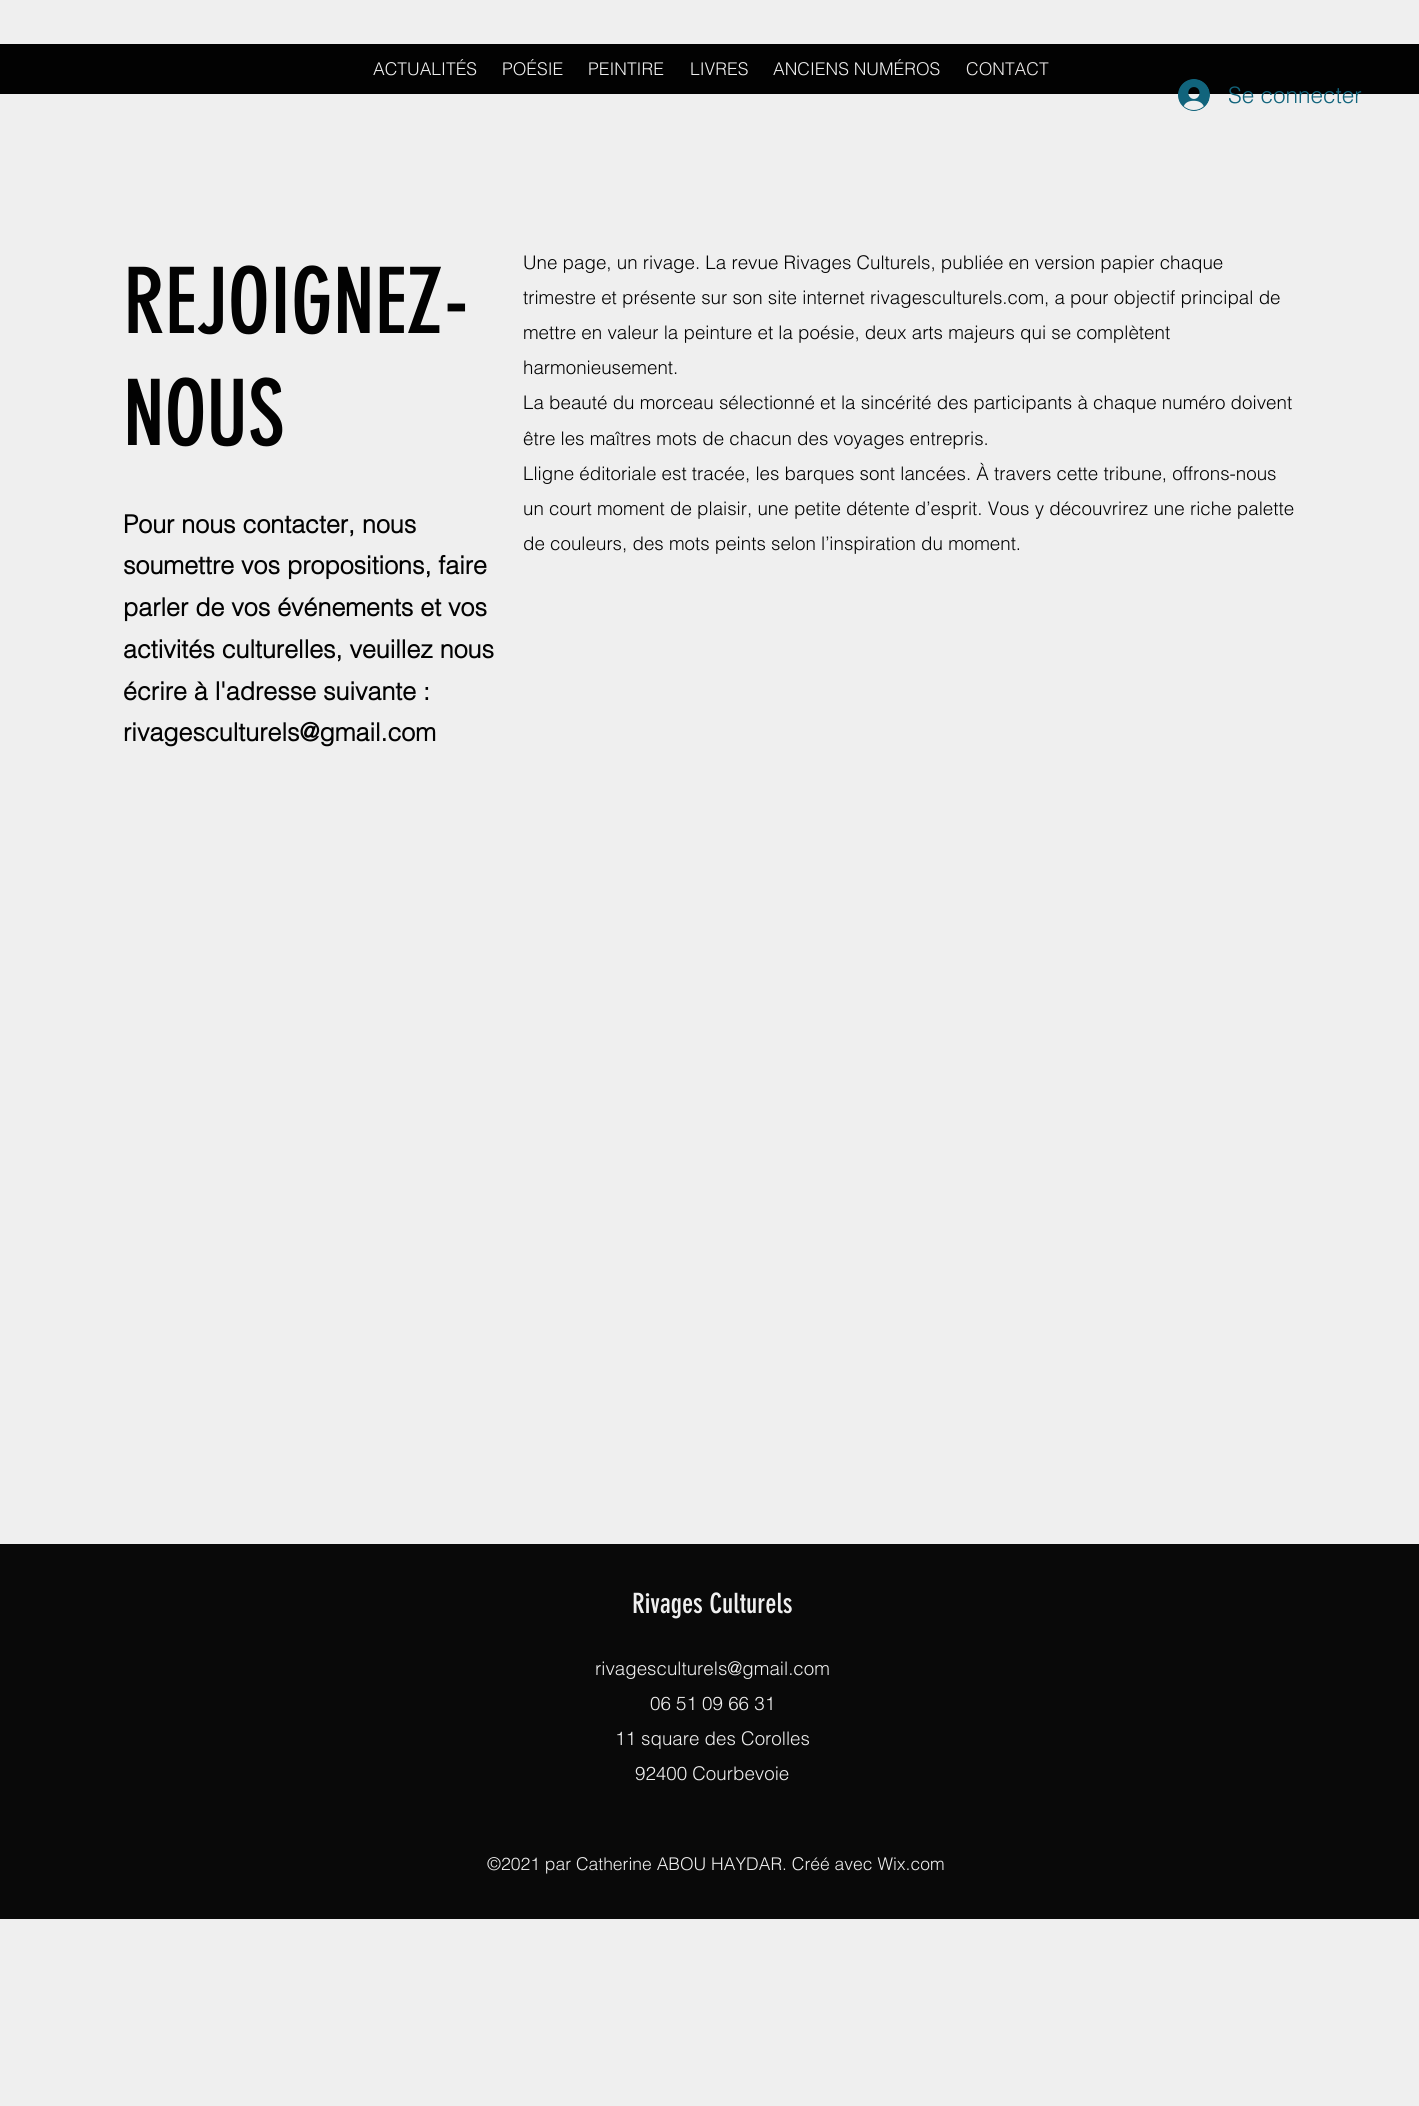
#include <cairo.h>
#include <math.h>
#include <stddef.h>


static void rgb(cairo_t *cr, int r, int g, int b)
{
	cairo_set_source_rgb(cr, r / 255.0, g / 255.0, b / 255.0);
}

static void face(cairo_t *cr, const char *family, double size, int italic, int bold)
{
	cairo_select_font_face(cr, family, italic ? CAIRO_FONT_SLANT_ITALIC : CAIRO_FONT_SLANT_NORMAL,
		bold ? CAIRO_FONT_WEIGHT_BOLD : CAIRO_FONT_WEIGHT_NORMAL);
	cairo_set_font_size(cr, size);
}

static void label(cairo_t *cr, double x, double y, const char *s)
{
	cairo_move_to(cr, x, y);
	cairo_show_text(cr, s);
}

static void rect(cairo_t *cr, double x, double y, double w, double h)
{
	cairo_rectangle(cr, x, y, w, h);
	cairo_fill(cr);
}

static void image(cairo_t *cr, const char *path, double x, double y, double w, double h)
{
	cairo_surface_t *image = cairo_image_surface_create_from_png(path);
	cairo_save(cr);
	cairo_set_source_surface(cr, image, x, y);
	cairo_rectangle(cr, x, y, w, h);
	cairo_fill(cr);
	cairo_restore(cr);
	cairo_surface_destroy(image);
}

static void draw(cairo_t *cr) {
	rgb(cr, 239, 239, 239);
	cairo_paint(cr);
	rgb(cr, 2, 2, 2);
	rect(cr, 0, 44, 1419, 50);
	face(cr, "helvetica Light", 17.5, 0, 0);
	rgb(cr, 239, 239, 239);
	label(cr, 373, 75, "ACTUALITÉS");
	label(cr, 502, 75, "POÉSIE");
	label(cr, 588, 75, "PEINTIRE");
	label(cr, 690, 75, "LIVRES");
	label(cr, 773, 75, "ANCIENS NUMÉROS");
	rgb(cr, 237, 234, 233);
	label(cr, 966, 75, "CONTACT");
	image(cr, "image0.png", 1178, 79, 32, 32);
	face(cr, "helvetica Light", 22.5, 0, 0);
	rgb(cr, 17, 100, 124);
	label(cr, 1228, 103, "Se connecter");
	face(cr, "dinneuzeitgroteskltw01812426", 90, 0, 0);
	rgb(cr, 2, 2, 2);
	label(cr, 123, 333, "REJOIGNEZ-");
	label(cr, 123, 445, "NOUS");
	face(cr, "helvetica Light", 18.75, 0, 0);
	label(cr, 523, 269, "Une page, un rivage. La revue Rivages Culturels, publiée en version papier chaque");
	label(cr, 523, 304, "trimestre et présente sur son site internet rivagesculturels.com, a pour objectif principal de");
	label(cr, 523, 339, "mettre en valeur la peinture et la poésie, deux arts majeurs qui se complètent");
	label(cr, 523, 374, "harmonieusement.");
	label(cr, 523, 409, "La beauté du morceau sélectionné et la sincérité des participants à chaque numéro doivent");
	label(cr, 523, 445, "être les maîtres mots de chacun des voyages entrepris.");
	label(cr, 523, 480, "Lligne éditoriale est tracée, les barques sont lancées. À travers cette tribune, offrons-nous");
	label(cr, 523, 515, "un court moment de plaisir, une petite détente d’esprit. Vous y découvrirez une riche palette");
	label(cr, 523, 550, "de couleurs, des mots peints selon l’inspiration du moment.");
	face(cr, "helvetica", 25, 0, 1);
	label(cr, 123, 533, "Pour nous contacter, nous");
	label(cr, 123, 574, "soumettre vos propositions, faire");
	label(cr, 123, 616, "parler de vos événements et vos");
	label(cr, 123, 658, "activités culturelles, veuillez nous");
	label(cr, 123, 700, "écrire à l'adresse suivante :");
	label(cr, 123, 741, "rivagesculturels@gmail.com");
	rgb(cr, 9, 9, 9);
	rect(cr, 0, 1544, 1419, 375);
	face(cr, "dinneuzeitgroteskltw01812426", 27.5, 0, 0);
	rgb(cr, 239, 239, 239);
	label(cr, 632, 1613, "Rivages Culturels");
	face(cr, "helvetica Light", 18.75, 0, 0);
	label(cr, 595, 1675, "rivagesculturels@gmail.com");
	label(cr, 650, 1710, "06 51 09 66 31");
	label(cr, 615, 1745, "11 square des Corolles");
	label(cr, 635, 1780, "92400 Courbevoie");
	face(cr, "helvetica Light", 17.5, 0, 0);
	label(cr, 487, 1870, "©2021 par Catherine ABOU HAYDAR. Créé avec Wix.com");
}

int main(void) {
	cairo_surface_t *surface = cairo_image_surface_create(CAIRO_FORMAT_RGB24, 1419, 2106);
	cairo_t *cr = cairo_create(surface);
	cairo_font_options_t *options = cairo_font_options_create();
	cairo_font_options_set_hint_metrics(options, CAIRO_HINT_METRICS_OFF);
	cairo_font_options_set_hint_style(options, CAIRO_HINT_STYLE_NONE);
	cairo_set_font_options(cr, options);
	cairo_set_miter_limit(cr, 4);
	draw(cr);
	cairo_surface_write_to_png(surface, "render.png");
	cairo_font_options_destroy(options);
	cairo_destroy(cr);
	cairo_surface_destroy(surface);
	return 0;
}
